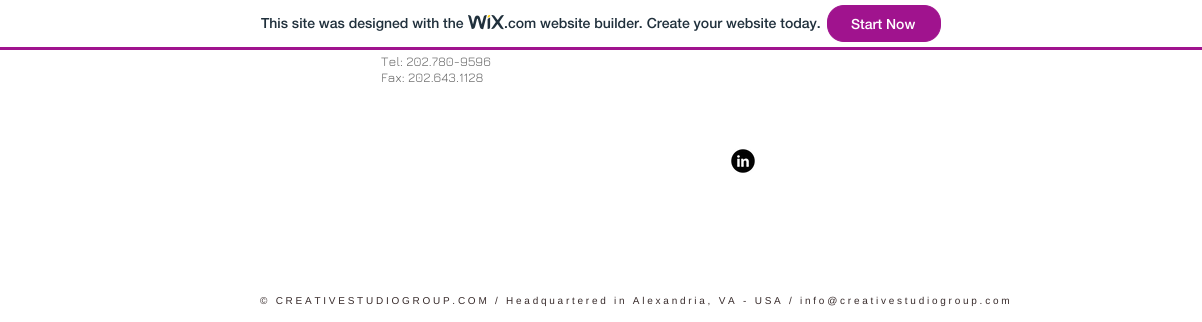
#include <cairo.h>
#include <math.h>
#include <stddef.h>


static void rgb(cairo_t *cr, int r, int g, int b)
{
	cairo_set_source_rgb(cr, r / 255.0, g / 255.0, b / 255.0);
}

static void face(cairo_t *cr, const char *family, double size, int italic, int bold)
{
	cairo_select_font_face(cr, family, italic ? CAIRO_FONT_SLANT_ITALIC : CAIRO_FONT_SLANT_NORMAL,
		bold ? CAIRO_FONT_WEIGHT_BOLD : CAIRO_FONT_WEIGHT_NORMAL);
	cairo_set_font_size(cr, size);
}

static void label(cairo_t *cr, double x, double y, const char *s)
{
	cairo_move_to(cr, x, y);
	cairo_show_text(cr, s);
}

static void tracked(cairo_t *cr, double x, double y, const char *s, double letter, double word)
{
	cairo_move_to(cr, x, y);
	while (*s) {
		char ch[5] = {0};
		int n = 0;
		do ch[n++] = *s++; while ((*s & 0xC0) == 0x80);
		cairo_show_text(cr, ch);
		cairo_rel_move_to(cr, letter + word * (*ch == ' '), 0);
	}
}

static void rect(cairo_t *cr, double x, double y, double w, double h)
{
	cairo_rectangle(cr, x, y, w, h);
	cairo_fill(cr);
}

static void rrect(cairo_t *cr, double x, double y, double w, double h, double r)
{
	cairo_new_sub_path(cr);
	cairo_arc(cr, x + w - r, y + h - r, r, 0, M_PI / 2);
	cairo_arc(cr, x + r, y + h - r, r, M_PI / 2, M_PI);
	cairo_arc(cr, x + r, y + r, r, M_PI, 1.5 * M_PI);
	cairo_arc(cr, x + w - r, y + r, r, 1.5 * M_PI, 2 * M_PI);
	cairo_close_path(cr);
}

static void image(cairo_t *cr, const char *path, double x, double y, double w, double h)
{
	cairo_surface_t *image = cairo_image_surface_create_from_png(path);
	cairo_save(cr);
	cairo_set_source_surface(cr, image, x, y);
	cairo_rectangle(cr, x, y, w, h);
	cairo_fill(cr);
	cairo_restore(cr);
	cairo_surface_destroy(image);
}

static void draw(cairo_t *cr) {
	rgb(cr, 255, 255, 255);
	cairo_paint(cr);
	rgb(cr, 160, 19, 142);
	rect(cr, 0, 47, 1202, 3);
	face(cr, "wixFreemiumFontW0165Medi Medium", 14, 0, 0);
	rgb(cr, 32, 48, 60);
	label(cr, 261, 28, "This site was designed with the");
	image(cr, "image0.png", 468, 15, 36, 15);
	label(cr, 504, 28, ".com website builder. Create your website today.");
	rgb(cr, 160, 19, 142);
	rrect(cr, 827.5, 5.5, 113, 36, 16.5);
	cairo_fill_preserve(cr);
	cairo_set_line_width(cr, 1);
	cairo_stroke(cr);
	rgb(cr, 255, 255, 255);
	label(cr, 851, 29, "Start Now");
	face(cr, "Jura", 13, 0, 0);
	rgb(cr, 102, 102, 102);
	label(cr, 381, 66, "Tel: 202.780-9596");
	label(cr, 381, 82, "Fax: 202.643.1128");
	image(cr, "image1.png", 731, 149, 24, 24);
	face(cr, "Liberation Sans", 10, 0, 0);
	rgb(cr, 56, 43, 43);
	tracked(cr, 260, 304, "© CREATIVESTUDIOGROUP.COM / Headquartered in Alexandria, VA - USA / info@creativestudiogroup.com", 2.75, 0);
}

int main(void) {
	cairo_surface_t *surface = cairo_image_surface_create(CAIRO_FORMAT_RGB24, 1202, 322);
	cairo_t *cr = cairo_create(surface);
	cairo_font_options_t *options = cairo_font_options_create();
	cairo_font_options_set_hint_metrics(options, CAIRO_HINT_METRICS_OFF);
	cairo_font_options_set_hint_style(options, CAIRO_HINT_STYLE_NONE);
	cairo_set_font_options(cr, options);
	cairo_set_miter_limit(cr, 4);
	draw(cr);
	cairo_surface_write_to_png(surface, "render.png");
	cairo_font_options_destroy(options);
	cairo_destroy(cr);
	cairo_surface_destroy(surface);
	return 0;
}
